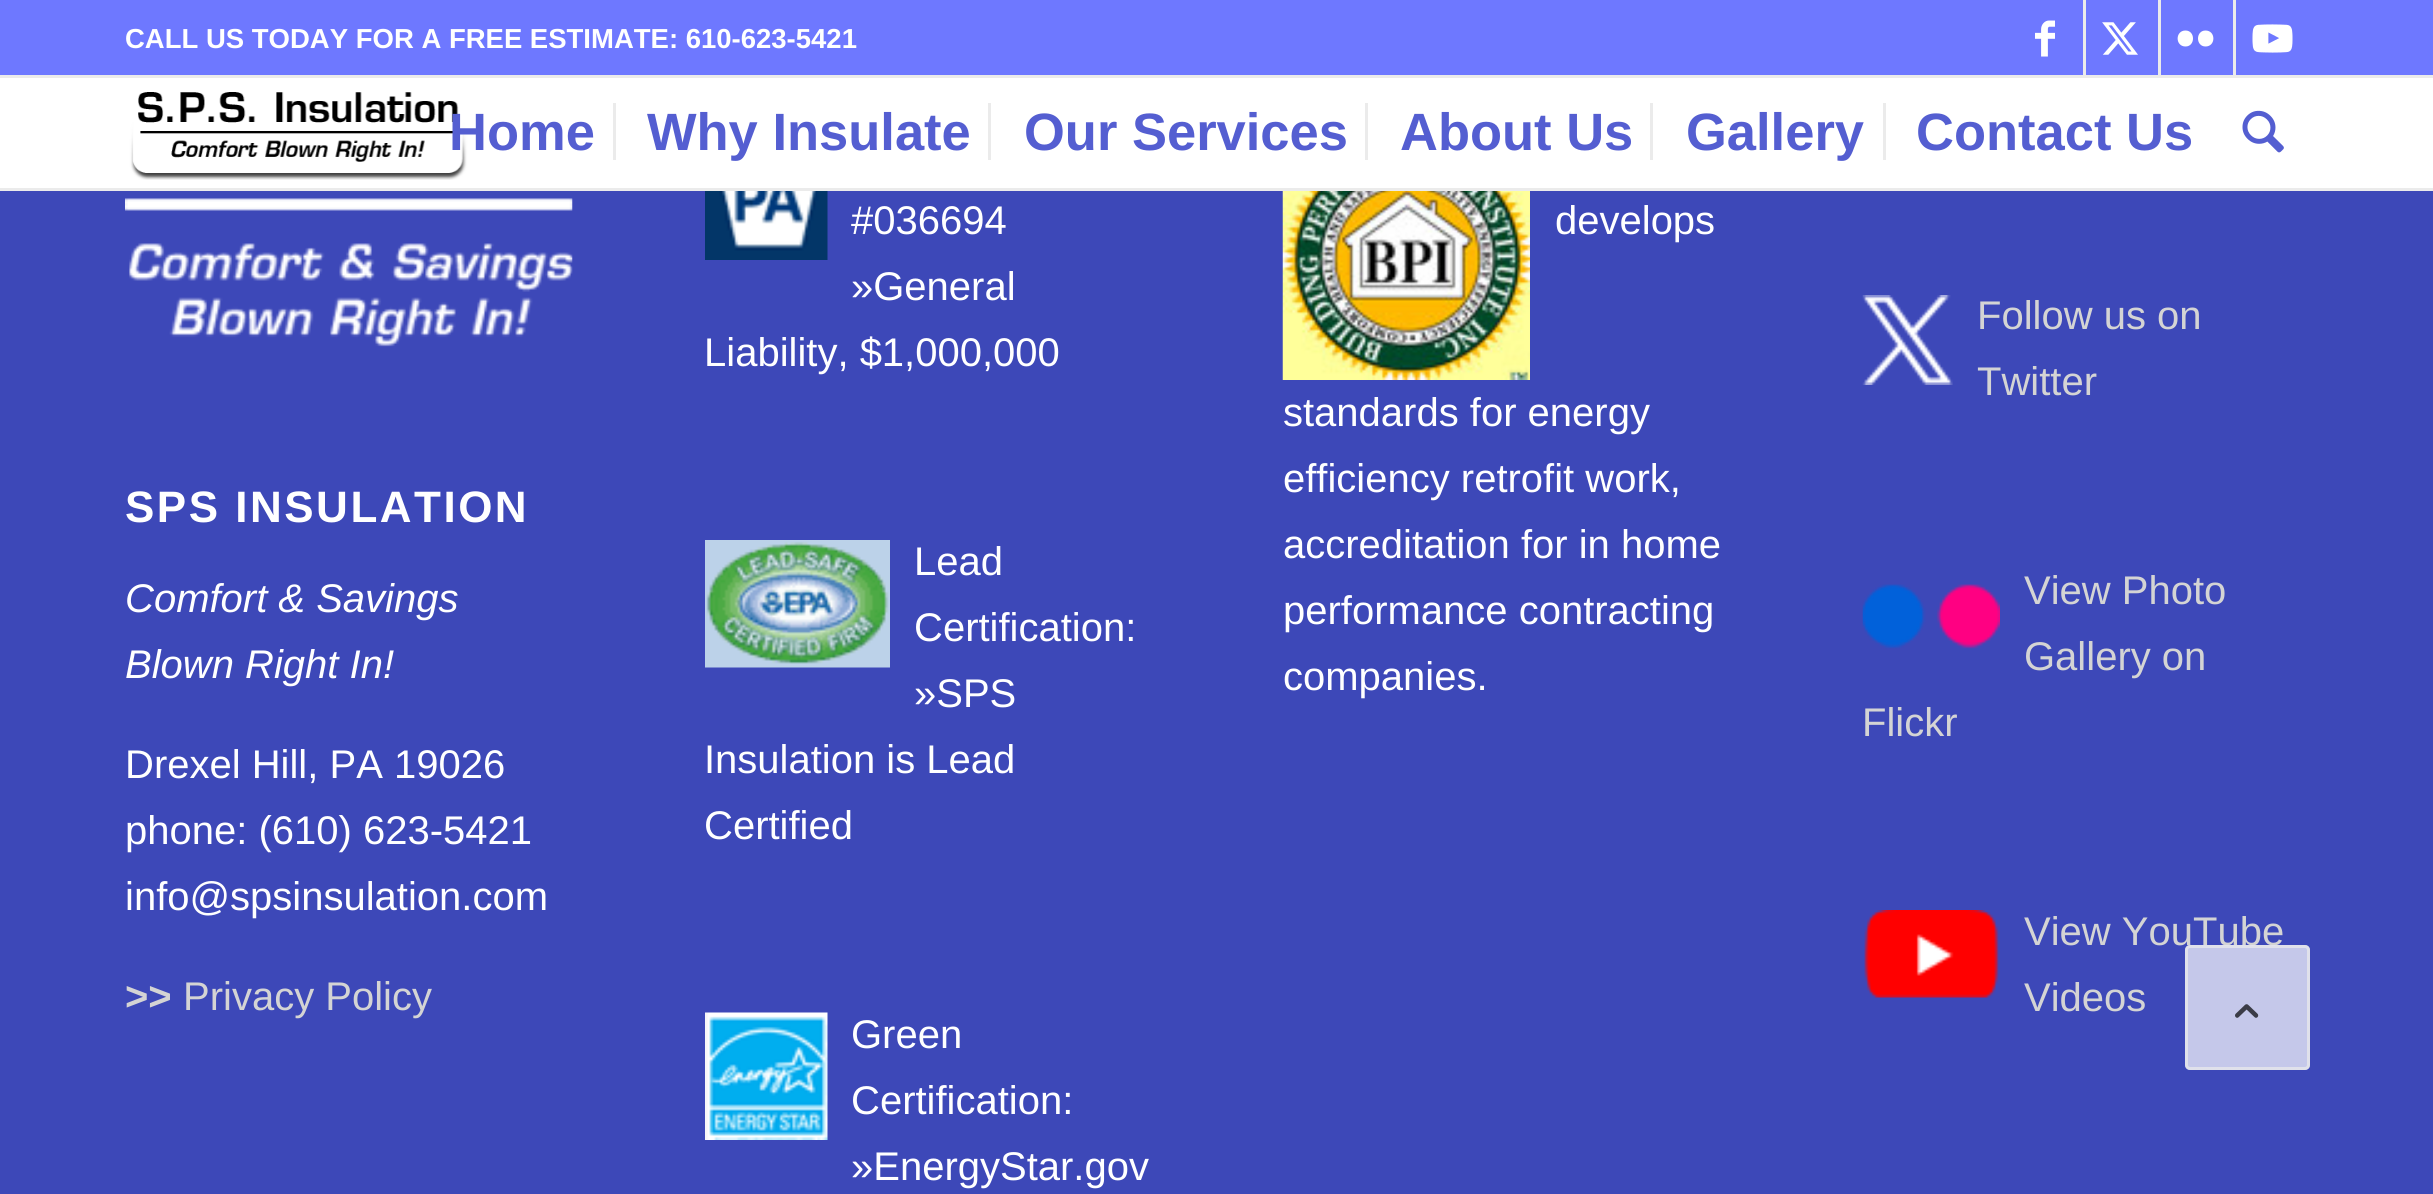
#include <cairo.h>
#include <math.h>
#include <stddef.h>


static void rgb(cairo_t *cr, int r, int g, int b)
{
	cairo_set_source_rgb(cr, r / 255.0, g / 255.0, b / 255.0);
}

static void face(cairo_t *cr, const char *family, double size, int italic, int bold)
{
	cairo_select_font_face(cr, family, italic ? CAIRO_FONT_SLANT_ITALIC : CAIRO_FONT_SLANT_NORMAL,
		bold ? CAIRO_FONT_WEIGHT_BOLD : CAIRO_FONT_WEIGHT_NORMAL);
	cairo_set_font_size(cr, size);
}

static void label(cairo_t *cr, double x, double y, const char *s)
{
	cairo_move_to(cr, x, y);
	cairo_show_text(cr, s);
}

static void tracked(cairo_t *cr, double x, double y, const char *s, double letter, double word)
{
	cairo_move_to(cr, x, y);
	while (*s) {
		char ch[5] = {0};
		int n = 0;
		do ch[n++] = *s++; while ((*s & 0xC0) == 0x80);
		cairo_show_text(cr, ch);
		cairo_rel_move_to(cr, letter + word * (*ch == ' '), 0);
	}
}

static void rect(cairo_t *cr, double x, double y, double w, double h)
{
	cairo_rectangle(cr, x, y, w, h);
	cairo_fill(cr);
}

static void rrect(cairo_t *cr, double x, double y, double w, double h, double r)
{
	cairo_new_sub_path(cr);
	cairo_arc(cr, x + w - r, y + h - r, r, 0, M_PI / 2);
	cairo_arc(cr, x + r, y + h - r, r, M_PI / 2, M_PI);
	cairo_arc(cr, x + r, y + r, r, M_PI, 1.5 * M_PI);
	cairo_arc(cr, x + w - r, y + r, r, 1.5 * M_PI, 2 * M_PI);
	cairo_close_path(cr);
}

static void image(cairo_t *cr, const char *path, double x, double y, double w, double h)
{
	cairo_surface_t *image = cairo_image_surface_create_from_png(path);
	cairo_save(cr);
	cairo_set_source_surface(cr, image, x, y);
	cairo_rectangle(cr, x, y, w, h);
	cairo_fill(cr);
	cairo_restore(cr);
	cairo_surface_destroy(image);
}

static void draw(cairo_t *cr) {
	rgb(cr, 61, 72, 184);
	cairo_paint(cr);
	rgb(cr, 110, 120, 255);
	rect(cr, 0, 0, 2433, 75);
	rgb(cr, 235, 235, 235);
	rect(cr, 0, 75, 2433, 3);
	face(cr, "Liberation Sans", 27.5, 0, 1);
	rgb(cr, 255, 255, 255);
	label(cr, 125, 48, "CALL US TODAY FOR A FREE ESTIMATE: 610-623-5421");
	rgb(cr, 235, 235, 235);
	rect(cr, 2083, 0, 3, 75);
	image(cr, "image0.png", 2035, 20, 20, 37);
	rect(cr, 2158, 0, 3, 75);
	image(cr, "image1.png", 2102, 22, 36, 33);
	rect(cr, 2233, 0, 3, 75);
	rgb(cr, 255, 255, 255);
	cairo_new_path(cr);
	cairo_move_to(cr, 2185.5, 46.5);
	cairo_curve_to(cr, 2175, 46.5, 2175, 30.5, 2185.5, 30.5);
	cairo_curve_to(cr, 2195.5, 30.5, 2195.5, 46.5, 2185.5, 46.5);
	cairo_close_path(cr);
	cairo_move_to(cr, 2205.5, 46.5);
	cairo_curve_to(cr, 2195.5, 46.5, 2195.5, 30.5, 2205.5, 30.5);
	cairo_curve_to(cr, 2216, 30.5, 2216, 46.5, 2205.5, 46.5);
	cairo_close_path(cr);
	cairo_fill(cr);
	image(cr, "image2.png", 2252, 24, 41, 29);
	rect(cr, 0, 78, 2433, 110);
	rgb(cr, 235, 235, 235);
	rect(cr, 0, 188, 2433, 3);
	image(cr, "image3.png", 125, 78, 345, 102);
	face(cr, "Liberation Sans", 52.5, 0, 1);
	rgb(cr, 84, 94, 209);
	label(cr, 449, 150, "Home");
	label(cr, 647, 150, "Why Insulate");
	rgb(cr, 235, 235, 235);
	rect(cr, 613, 103, 3, 57);
	rgb(cr, 84, 94, 209);
	label(cr, 1024, 150, "Our Services");
	rgb(cr, 235, 235, 235);
	rect(cr, 988, 103, 3, 57);
	rgb(cr, 84, 94, 209);
	label(cr, 1400, 150, "About Us");
	rgb(cr, 235, 235, 235);
	rect(cr, 1365, 103, 3, 57);
	rgb(cr, 84, 94, 209);
	label(cr, 1686, 150, "Gallery");
	rgb(cr, 235, 235, 235);
	rect(cr, 1650, 103, 3, 57);
	rgb(cr, 84, 94, 209);
	label(cr, 1916, 150, "Contact Us");
	rgb(cr, 235, 235, 235);
	rect(cr, 1883, 103, 3, 57);
	image(cr, "image4.png", 2242, 110, 42, 43);
	image(cr, "image5.png", 125, 198, 448, 149);
	face(cr, "Liberation Sans", 44, 0, 1);
	rgb(cr, 255, 255, 255);
	tracked(cr, 125, 522, "SPS INSULATION", 2.5, 0);
	face(cr, "Liberation Sans", 40, 1, 0);
	label(cr, 125, 612, "Comfort & Savings");
	label(cr, 125, 678, "Blown Right In!");
	face(cr, "Liberation Sans", 40, 0, 0);
	label(cr, 125, 778, "Drexel Hill, PA 19026");
	label(cr, 125, 844, "phone: (610) 623-5421");
	label(cr, 125, 910, "info@spsinsulation.com");
	face(cr, "Liberation Sans", 40, 0, 1);
	rgb(cr, 212, 212, 212);
	label(cr, 125, 1010, ">>");
	face(cr, "Liberation Sans", 40, 0, 0);
	label(cr, 183, 1010, "Privacy Policy");
	image(cr, "image6.png", 705, 191, 123, 69);
	rgb(cr, 255, 255, 255);
	label(cr, 851, 234, "#036694");
	label(cr, 851, 300, "»General");
	label(cr, 704, 366, "Liability, $1,000,000");
	image(cr, "image7.png", 705, 540, 185, 128);
	label(cr, 914, 575, "Lead");
	label(cr, 914, 641, "Certification:");
	label(cr, 914, 707, "»SPS");
	label(cr, 704, 773, "Insulation is Lead");
	label(cr, 704, 839, "Certified");
	image(cr, "image8.png", 705, 1012, 123, 128);
	label(cr, 851, 1048, "Green");
	label(cr, 851, 1114, "Certification:");
	label(cr, 851, 1180, "»EnergyStar.gov");
	image(cr, "image9.png", 1282, 191, 248, 189);
	label(cr, 1555, 234, "develops");
	label(cr, 1283, 426, "standards for energy");
	label(cr, 1283, 492, "efficiency retrofit work,");
	label(cr, 1283, 558, "accreditation for in home");
	label(cr, 1283, 624, "performance contracting");
	label(cr, 1283, 690, "companies.");
	image(cr, "image10.png", 1862, 295, 91, 90);
	rgb(cr, 212, 212, 212);
	label(cr, 1977, 329, "Follow us on");
	label(cr, 1977, 395, "Twitter");
	image(cr, "image11.png", 1862, 584, 138, 65);
	label(cr, 2024, 604, "View Photo");
	label(cr, 2024, 670, "Gallery on");
	label(cr, 1862, 736, "Flickr");
	image(cr, "image12.png", 1864, 910, 135, 88);
	label(cr, 2024, 945, "View YouTube");
	label(cr, 2024, 1011, "Videos");
	cairo_set_source_rgba(cr, 1, 1, 1, 0.7);
	rrect(cr, 2185, 945, 125, 125, 5);
	cairo_fill(cr);
	rrect(cr, 2186.5, 946.5, 122, 122, 3.5);
	cairo_set_source_rgba(cr, 0.922, 0.922, 0.922, 0.7);
	cairo_set_line_width(cr, 3);
	cairo_stroke(cr);
	image(cr, "image13.png", 2235, 1004, 24, 14);
}

int main(void) {
	cairo_surface_t *surface = cairo_image_surface_create(CAIRO_FORMAT_RGB24, 2433, 1194);
	cairo_t *cr = cairo_create(surface);
	cairo_font_options_t *options = cairo_font_options_create();
	cairo_font_options_set_hint_metrics(options, CAIRO_HINT_METRICS_OFF);
	cairo_font_options_set_hint_style(options, CAIRO_HINT_STYLE_NONE);
	cairo_set_font_options(cr, options);
	cairo_set_miter_limit(cr, 4);
	draw(cr);
	cairo_surface_write_to_png(surface, "render.png");
	cairo_font_options_destroy(options);
	cairo_destroy(cr);
	cairo_surface_destroy(surface);
	return 0;
}
